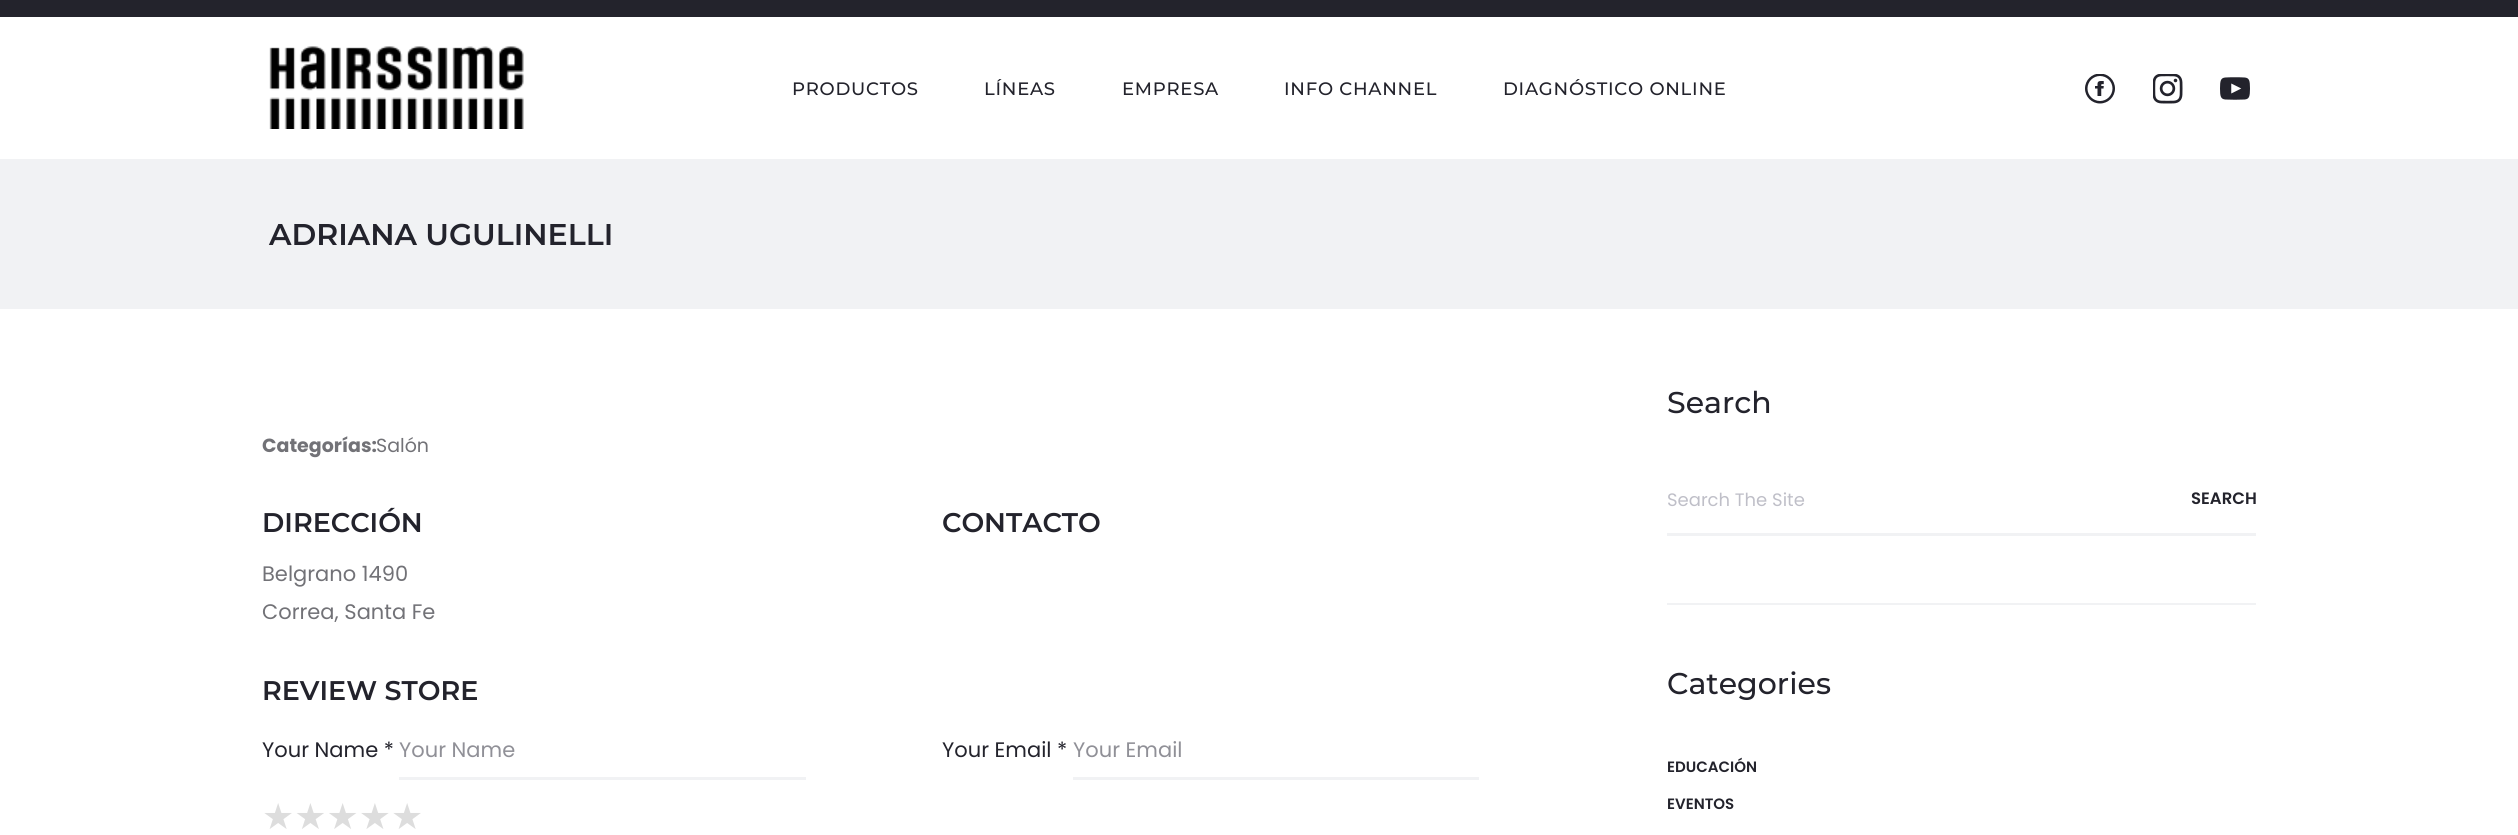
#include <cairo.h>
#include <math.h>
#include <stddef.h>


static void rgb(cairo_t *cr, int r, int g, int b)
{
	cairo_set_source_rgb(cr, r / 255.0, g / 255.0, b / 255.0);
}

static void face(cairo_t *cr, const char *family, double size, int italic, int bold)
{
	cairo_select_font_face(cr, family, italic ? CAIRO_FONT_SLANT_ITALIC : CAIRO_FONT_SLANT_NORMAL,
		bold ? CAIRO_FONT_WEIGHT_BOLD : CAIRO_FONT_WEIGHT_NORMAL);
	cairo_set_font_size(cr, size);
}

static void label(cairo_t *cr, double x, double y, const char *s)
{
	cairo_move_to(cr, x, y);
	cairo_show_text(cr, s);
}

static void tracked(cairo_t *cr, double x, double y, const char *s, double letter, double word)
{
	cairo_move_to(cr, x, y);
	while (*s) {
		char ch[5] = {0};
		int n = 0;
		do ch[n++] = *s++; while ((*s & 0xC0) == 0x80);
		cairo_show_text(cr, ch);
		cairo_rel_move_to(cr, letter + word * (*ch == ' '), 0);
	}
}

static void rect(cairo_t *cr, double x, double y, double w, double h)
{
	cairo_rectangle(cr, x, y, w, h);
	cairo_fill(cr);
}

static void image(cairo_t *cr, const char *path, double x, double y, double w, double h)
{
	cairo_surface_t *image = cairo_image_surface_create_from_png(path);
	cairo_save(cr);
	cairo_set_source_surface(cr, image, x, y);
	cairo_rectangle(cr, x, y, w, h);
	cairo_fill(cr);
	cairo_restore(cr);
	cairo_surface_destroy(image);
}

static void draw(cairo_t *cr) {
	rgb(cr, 255, 255, 255);
	cairo_paint(cr);
	rgb(cr, 35, 35, 44);
	rect(cr, 0, 0, 2518, 17);
	image(cr, "image0.png", 269, 46, 255, 83);
	face(cr, "Montserrat Medium", 18, 0, 0);
	tracked(cr, 792, 95, "PRODUCTOS", 0.75, 0);
	tracked(cr, 984, 95, "LÍNEAS", 0.75, 0);
	tracked(cr, 1122, 95, "EMPRESA", 0.75, 0);
	tracked(cr, 1284, 95, "INFO CHANNEL", 0.75, 0);
	tracked(cr, 1503, 95, "DIAGNÓSTICO ONLINE", 0.75, 0);
	image(cr, "image1.png", 2085, 74, 30, 30);
	image(cr, "image2.png", 2153, 74, 30, 30);
	image(cr, "image3.png", 2220, 77, 30, 23);
	rgb(cr, 241, 242, 244);
	rect(cr, 0, 159, 2518, 150);
	face(cr, "Montserrat SemiBold", 30, 0, 0);
	rgb(cr, 35, 35, 44);
	label(cr, 269, 245, "ADRIANA UGULINELLI");
	face(cr, "Poppins", 19, 0, 1);
	rgb(cr, 114, 114, 119);
	label(cr, 262, 452, "Categorías:");
	face(cr, "Poppins", 19, 0, 0);
	label(cr, 376, 452, "Salón");
	face(cr, "Montserrat SemiBold", 27, 0, 0);
	rgb(cr, 35, 35, 44);
	label(cr, 262, 532, "DIRECCIÓN");
	face(cr, "Poppins", 21, 0, 0);
	rgb(cr, 114, 114, 119);
	label(cr, 262, 581, "Belgrano 1490");
	label(cr, 262, 619, "Correa, Santa Fe");
	face(cr, "Montserrat SemiBold", 27, 0, 0);
	rgb(cr, 35, 35, 44);
	label(cr, 942, 532, "CONTACTO");
	label(cr, 262, 700, "REVIEW STORE");
	face(cr, "Poppins", 21, 0, 0);
	label(cr, 262, 757, "Your Name *");
	rgb(cr, 241, 242, 244);
	rect(cr, 399, 777, 407, 3);
	rgb(cr, 144, 144, 151);
	label(cr, 399, 757, "Your Name");
	rgb(cr, 35, 35, 44);
	label(cr, 942, 757, "Your Email *");
	rgb(cr, 241, 242, 244);
	rect(cr, 1073, 777, 406, 3);
	rgb(cr, 144, 144, 151);
	label(cr, 1073, 757, "Your Email");
	face(cr, "DejaVu Sans", 36, 0, 0);
	rgb(cr, 221, 221, 221);
	label(cr, 262, 829, "★★★★★");
	rgb(cr, 241, 242, 244);
	rect(cr, 1667, 603, 589, 2);
	face(cr, "Montserrat Medium", 30, 0, 0);
	rgb(cr, 35, 35, 44);
	label(cr, 1667, 413, "Search");
	rgb(cr, 241, 242, 244);
	rect(cr, 1667, 533, 589, 3);
	face(cr, "Poppins", 18, 0, 0);
	rgb(cr, 191, 191, 200);
	label(cr, 1667, 506, "Search The Site");
	face(cr, "Poppins SemiBold", 16.5, 0, 0);
	rgb(cr, 35, 35, 44);
	label(cr, 2191, 504, "SEARCH");
	face(cr, "Montserrat Medium", 30, 0, 0);
	label(cr, 1667, 694, "Categories");
	face(cr, "Poppins SemiBold", 15, 0, 0);
	label(cr, 1667, 772, "EDUCACIÓN");
	label(cr, 1667, 809, "EVENTOS");
}

int main(void) {
	cairo_surface_t *surface = cairo_image_surface_create(CAIRO_FORMAT_RGB24, 2518, 835);
	cairo_t *cr = cairo_create(surface);
	cairo_font_options_t *options = cairo_font_options_create();
	cairo_font_options_set_hint_metrics(options, CAIRO_HINT_METRICS_OFF);
	cairo_font_options_set_hint_style(options, CAIRO_HINT_STYLE_NONE);
	cairo_set_font_options(cr, options);
	cairo_set_miter_limit(cr, 4);
	draw(cr);
	cairo_surface_write_to_png(surface, "render.png");
	cairo_font_options_destroy(options);
	cairo_destroy(cr);
	cairo_surface_destroy(surface);
	return 0;
}
